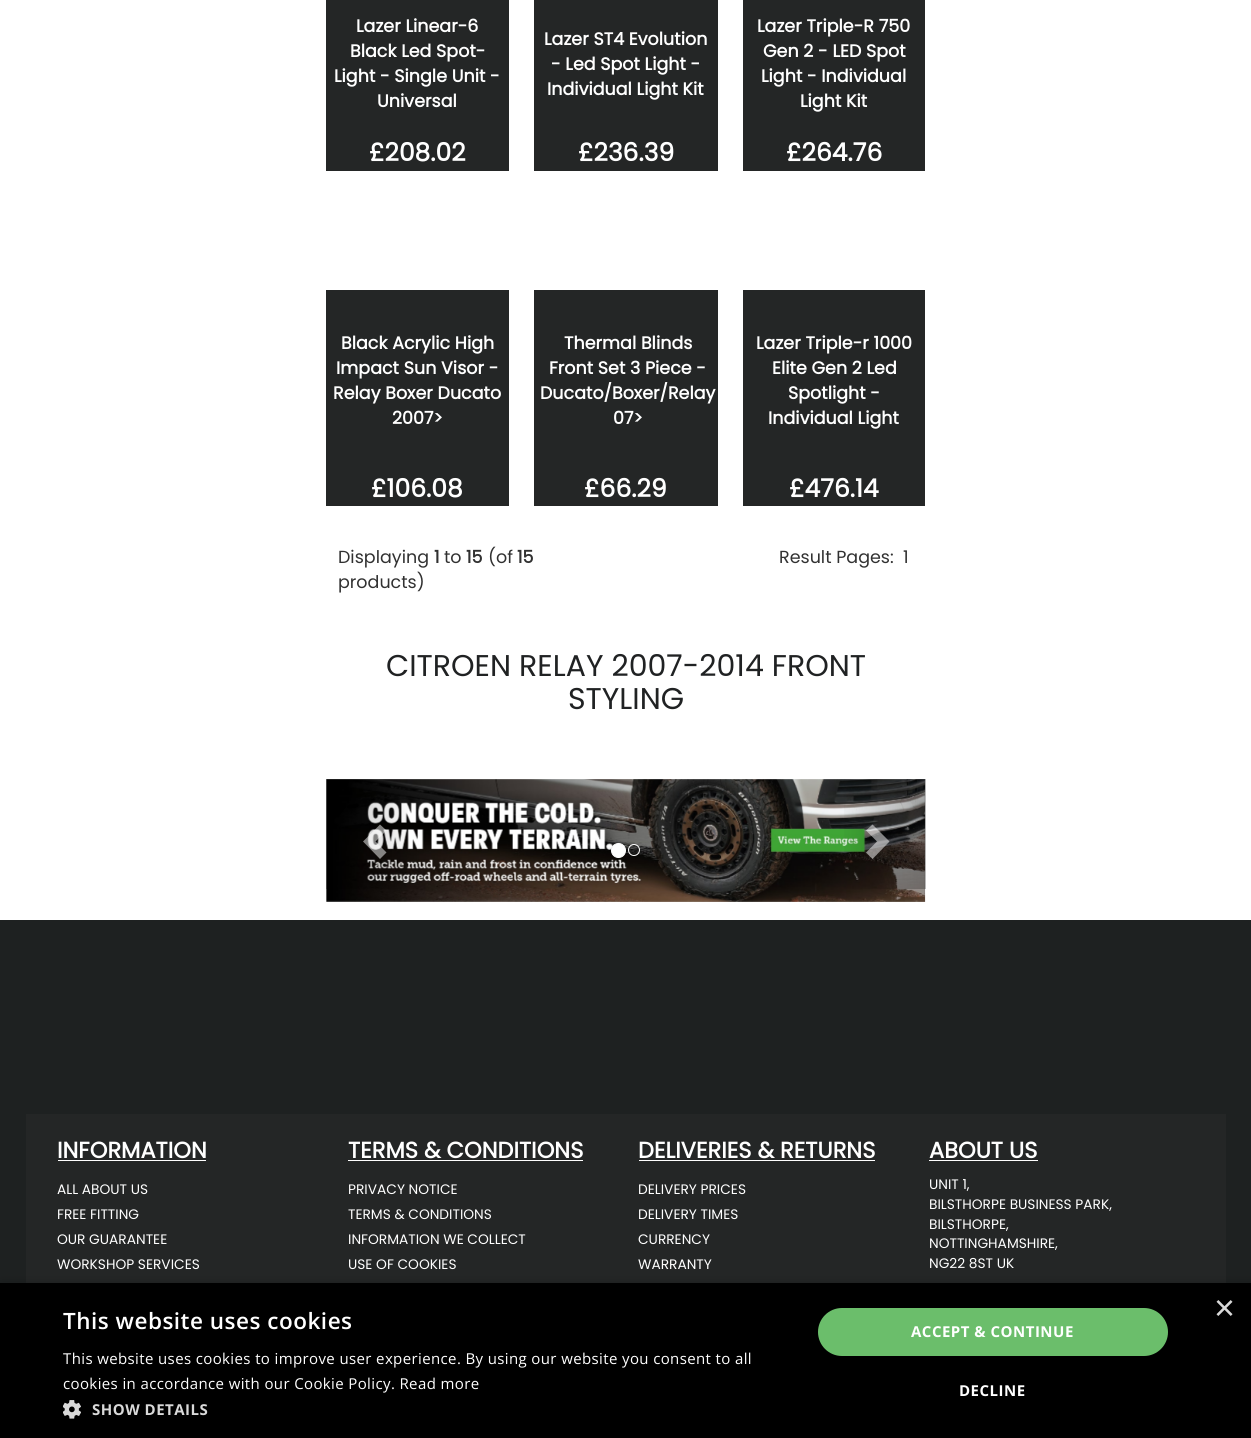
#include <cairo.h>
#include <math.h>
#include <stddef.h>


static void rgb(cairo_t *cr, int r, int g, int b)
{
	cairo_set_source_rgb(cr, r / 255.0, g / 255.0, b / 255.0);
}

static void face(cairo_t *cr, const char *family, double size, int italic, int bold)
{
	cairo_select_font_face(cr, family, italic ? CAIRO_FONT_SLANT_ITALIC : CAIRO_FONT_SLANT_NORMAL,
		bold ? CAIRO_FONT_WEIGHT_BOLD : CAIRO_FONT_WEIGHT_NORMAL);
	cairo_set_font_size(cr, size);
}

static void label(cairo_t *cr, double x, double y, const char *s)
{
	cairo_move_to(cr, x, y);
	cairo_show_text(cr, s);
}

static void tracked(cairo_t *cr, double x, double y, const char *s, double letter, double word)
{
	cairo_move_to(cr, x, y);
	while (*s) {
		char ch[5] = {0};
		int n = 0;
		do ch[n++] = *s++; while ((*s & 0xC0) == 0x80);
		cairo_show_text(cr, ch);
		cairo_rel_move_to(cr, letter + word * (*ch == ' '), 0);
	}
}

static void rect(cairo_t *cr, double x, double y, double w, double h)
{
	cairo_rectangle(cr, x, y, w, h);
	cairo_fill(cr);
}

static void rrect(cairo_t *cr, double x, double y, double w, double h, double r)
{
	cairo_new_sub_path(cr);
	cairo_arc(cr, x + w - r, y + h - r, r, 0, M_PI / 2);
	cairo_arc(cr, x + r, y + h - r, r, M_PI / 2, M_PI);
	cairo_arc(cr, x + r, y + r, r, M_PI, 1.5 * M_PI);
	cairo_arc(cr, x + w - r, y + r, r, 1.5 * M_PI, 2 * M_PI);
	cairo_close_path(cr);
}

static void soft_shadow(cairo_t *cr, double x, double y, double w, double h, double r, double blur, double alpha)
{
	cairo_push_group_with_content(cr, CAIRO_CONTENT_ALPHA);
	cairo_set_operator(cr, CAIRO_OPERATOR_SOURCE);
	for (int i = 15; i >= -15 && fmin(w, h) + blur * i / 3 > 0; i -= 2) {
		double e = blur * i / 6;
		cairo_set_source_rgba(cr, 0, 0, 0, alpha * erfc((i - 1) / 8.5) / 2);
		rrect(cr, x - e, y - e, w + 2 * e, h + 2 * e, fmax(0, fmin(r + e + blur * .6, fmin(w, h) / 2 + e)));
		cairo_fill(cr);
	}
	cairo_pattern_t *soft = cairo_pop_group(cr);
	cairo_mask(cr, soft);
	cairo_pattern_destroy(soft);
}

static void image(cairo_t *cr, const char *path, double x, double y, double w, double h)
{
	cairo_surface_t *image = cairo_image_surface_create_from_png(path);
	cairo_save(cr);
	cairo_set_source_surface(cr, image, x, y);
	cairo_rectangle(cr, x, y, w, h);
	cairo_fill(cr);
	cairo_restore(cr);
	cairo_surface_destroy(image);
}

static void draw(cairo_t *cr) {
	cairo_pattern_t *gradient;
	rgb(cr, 255, 255, 255);
	cairo_paint(cr);
	rgb(cr, 36, 38, 38);
	rect(cr, 326, 0, 183, 171);
	face(cr, "Poppins", 17.5, 0, 1);
	rgb(cr, 255, 255, 255);
	label(cr, 356, 32, "Lazer Linear-6");
	label(cr, 350, 57, "Black Led Spot-");
	label(cr, 334, 82, "Light - Single Unit -");
	label(cr, 377, 107, "Universal");
	face(cr, "Poppins", 25, 0, 1);
	label(cr, 369, 161, "£208.02");
	rgb(cr, 36, 38, 38);
	rect(cr, 534, 0, 184, 171);
	face(cr, "Poppins", 17.5, 0, 1);
	rgb(cr, 255, 255, 255);
	label(cr, 544, 45, "Lazer ST4 Evolution");
	label(cr, 551, 70, "- Led Spot Light -");
	label(cr, 547, 95, "Individual Light Kit");
	face(cr, "Poppins", 25, 0, 1);
	label(cr, 578, 161, "£236.39");
	rgb(cr, 36, 38, 38);
	rect(cr, 743, 0, 182, 171);
	face(cr, "Poppins", 17.5, 0, 1);
	rgb(cr, 255, 255, 255);
	label(cr, 757, 32, "Lazer Triple-R 750");
	label(cr, 763, 57, "Gen 2 - LED Spot");
	label(cr, 761, 82, "Light - Individual");
	label(cr, 800, 107, "Light Kit");
	face(cr, "Poppins", 25, 0, 1);
	label(cr, 786, 161, "£264.76");
	rgb(cr, 36, 38, 38);
	rect(cr, 326, 290, 183, 216);
	face(cr, "Poppins", 17.5, 0, 1);
	rgb(cr, 255, 255, 255);
	label(cr, 341, 349, "Black Acrylic High");
	label(cr, 336, 374, "Impact Sun Visor -");
	label(cr, 333, 399, "Relay Boxer Ducato");
	label(cr, 392, 424, "2007>");
	face(cr, "Poppins", 25, 0, 1);
	label(cr, 371, 497, "£106.08");
	rgb(cr, 36, 38, 38);
	rect(cr, 534, 290, 184, 216);
	face(cr, "Poppins", 17.5, 0, 1);
	rgb(cr, 255, 255, 255);
	label(cr, 564, 349, "Thermal Blinds");
	label(cr, 549, 374, "Front Set 3 Piece -");
	label(cr, 540, 399, "Ducato/Boxer/Relay");
	label(cr, 613, 424, "07>");
	face(cr, "Poppins", 25, 0, 1);
	label(cr, 584, 497, "£66.29");
	rgb(cr, 36, 38, 38);
	rect(cr, 743, 290, 182, 216);
	face(cr, "Poppins", 17.5, 0, 1);
	rgb(cr, 255, 255, 255);
	label(cr, 756, 349, "Lazer Triple-r 1000");
	label(cr, 772, 374, "Elite Gen 2 Led");
	label(cr, 788, 399, "Spotlight -");
	label(cr, 768, 424, "Individual Light");
	face(cr, "Poppins", 25, 0, 1);
	label(cr, 789, 497, "£476.14");
	face(cr, "Poppins", 17.5, 0, 0);
	rgb(cr, 49, 49, 49);
	label(cr, 338, 563, "Displaying");
	face(cr, "Poppins", 17.5, 0, 1);
	label(cr, 434, 563, "1");
	face(cr, "Poppins", 17.5, 0, 0);
	label(cr, 444, 563, "to");
	face(cr, "Poppins", 17.5, 0, 1);
	label(cr, 466, 563, "15");
	face(cr, "Poppins", 17.5, 0, 0);
	label(cr, 488, 563, "(of");
	face(cr, "Poppins", 17.5, 0, 1);
	label(cr, 517, 563, "15");
	face(cr, "Poppins", 17.5, 0, 0);
	label(cr, 338, 588, "products)");
	label(cr, 779, 563, "Result Pages:");
	label(cr, 903, 563, "1");
	face(cr, "Poppins", 30, 0, 0);
	rgb(cr, 32, 34, 35);
	label(cr, 386, 676, "CITROEN RELAY 2007-2014 FRONT");
	label(cr, 568, 709, "STYLING");
	image(cr, "image0.png", 326, 779, 600, 123);
	gradient = cairo_pattern_create_linear(326, 834, 416, 834);
	cairo_pattern_add_color_stop_rgba(gradient, 0, 0, 0, 0, 0.25);
	cairo_pattern_add_color_stop_rgba(gradient, 1, 0, 0, 0, 0);
	cairo_set_source(cr, gradient);
	cairo_pattern_destroy(gradient);
	rect(cr, 326, 779, 82, 110);
	cairo_set_source_rgba(cr, 1, 1, 1, 0.5);
	cairo_new_path(cr);
	cairo_move_to(cr, 386.5, 830.5);
	cairo_line_to(cr, 375.5, 841.5);
	cairo_line_to(cr, 386.5, 852.5);
	cairo_line_to(cr, 380, 859);
	cairo_line_to(cr, 363, 841.5);
	cairo_line_to(cr, 380, 824.5);
	cairo_close_path(cr);
	cairo_fill(cr);
	rgb(cr, 255, 255, 255);
	cairo_arc(cr, 618.5, 850.5, 7, 0, 2 * M_PI);
	cairo_fill_preserve(cr);
	cairo_set_line_width(cr, 1);
	cairo_stroke(cr);
	cairo_arc(cr, 634, 850, 5.5, 0, 2 * M_PI);
	cairo_stroke(cr);
	gradient = cairo_pattern_create_linear(836, 834, 926, 834);
	cairo_pattern_add_color_stop_rgba(gradient, 0, 0, 0, 0, 0);
	cairo_pattern_add_color_stop_rgba(gradient, 1, 0, 0, 0, 0.25);
	cairo_set_source(cr, gradient);
	cairo_pattern_destroy(gradient);
	rect(cr, 844, 779, 82, 110);
	cairo_set_source_rgba(cr, 1, 1, 1, 0.5);
	cairo_new_path(cr);
	cairo_move_to(cr, 889.5, 841.5);
	cairo_line_to(cr, 872.5, 859);
	cairo_line_to(cr, 866, 852.5);
	cairo_line_to(cr, 877, 841.5);
	cairo_line_to(cr, 866, 830.5);
	cairo_line_to(cr, 872.5, 824.5);
	cairo_close_path(cr);
	cairo_fill(cr);
	rgb(cr, 30, 33, 33);
	rect(cr, 0, 920, 1251, 363);
	rgb(cr, 36, 38, 38);
	rect(cr, 26, 1114, 1200, 169);
	face(cr, "Poppins", 22.5, 0, 1);
	rgb(cr, 255, 255, 255);
	label(cr, 57, 1158, "INFORMATION");
	rect(cr, 58, 1160, 148, 1);
	face(cr, "Poppins", 13.75, 0, 0);
	label(cr, 57, 1194, "ALL ABOUT US");
	label(cr, 57, 1219, "FREE FITTING");
	label(cr, 57, 1244, "OUR GUARANTEE");
	label(cr, 57, 1269, "WORKSHOP SERVICES");
	face(cr, "Poppins", 22.5, 0, 1);
	label(cr, 348, 1158, "TERMS & CONDITIONS");
	rect(cr, 348, 1160, 235, 1);
	face(cr, "Poppins", 13.75, 0, 0);
	label(cr, 348, 1194, "PRIVACY NOTICE");
	label(cr, 348, 1219, "TERMS & CONDITIONS");
	label(cr, 348, 1244, "INFORMATION WE COLLECT");
	label(cr, 348, 1269, "USE OF COOKIES");
	face(cr, "Poppins", 22.5, 0, 1);
	label(cr, 638, 1158, "DELIVERIES & RETURNS");
	rect(cr, 639, 1160, 236, 1);
	face(cr, "Poppins", 13.75, 0, 0);
	label(cr, 638, 1194, "DELIVERY PRICES");
	label(cr, 638, 1219, "DELIVERY TIMES");
	label(cr, 638, 1244, "CURRENCY");
	label(cr, 638, 1269, "WARRANTY");
	face(cr, "Poppins", 22.5, 0, 1);
	label(cr, 929, 1158, "ABOUT US");
	rect(cr, 929, 1160, 109, 1);
	face(cr, "Poppins", 13.75, 0, 0);
	label(cr, 929, 1189, "UNIT 1,");
	label(cr, 929, 1209, "BILSTHORPE BUSINESS PARK,");
	label(cr, 929, 1229, "BILSTHORPE,");
	label(cr, 929, 1248, "NOTTINGHAMSHIRE,");
	label(cr, 929, 1268, "NG22 8ST UK");
	rgb(cr, 0, 0, 0);
	soft_shadow(cr, 1, 1285, 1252, 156, 0, 5, 0.35);
	rgb(cr, 0, 0, 0);
	rect(cr, 0, 1283, 1251, 155);
	face(cr, "Liberation Sans", 36, 0, 0);
	rgb(cr, 217, 217, 217);
	label(cr, 1214, 1320, "×");
	face(cr, "Open Sans SemiBold", 22.5, 0, 0);
	rgb(cr, 255, 255, 255);
	tracked(cr, 63, 1329, "This website uses cookies", 0.5, 0);
	face(cr, "Open Sans", 15, 0, 0);
	tracked(cr, 63, 1364, "This website uses cookies to improve user experience. By using our website you consent to all", 0.38, 0);
	tracked(cr, 63, 1389, "cookies in accordance with our Cookie Policy. Read more", 0.38, 0);
	image(cr, "image1.png", 63, 1400, 18, 19);
	face(cr, "Open Sans", 15, 0, 1);
	rgb(cr, 217, 217, 217);
	tracked(cr, 92, 1415, "SHOW DETAILS", 0.5, 0);
	rgb(cr, 107, 190, 107);
	rrect(cr, 818, 1308, 350, 48, 24);
	cairo_fill(cr);
	rgb(cr, 255, 255, 255);
	tracked(cr, 911, 1337, "ACCEPT & CONTINUE", 0.5, 0);
	tracked(cr, 959, 1396, "DECLINE", 0.5, 0);
}

int main(void) {
	cairo_surface_t *surface = cairo_image_surface_create(CAIRO_FORMAT_RGB24, 1251, 1438);
	cairo_t *cr = cairo_create(surface);
	cairo_font_options_t *options = cairo_font_options_create();
	cairo_font_options_set_hint_metrics(options, CAIRO_HINT_METRICS_OFF);
	cairo_font_options_set_hint_style(options, CAIRO_HINT_STYLE_NONE);
	cairo_set_font_options(cr, options);
	cairo_set_miter_limit(cr, 4);
	draw(cr);
	cairo_surface_write_to_png(surface, "render.png");
	cairo_font_options_destroy(options);
	cairo_destroy(cr);
	cairo_surface_destroy(surface);
	return 0;
}
